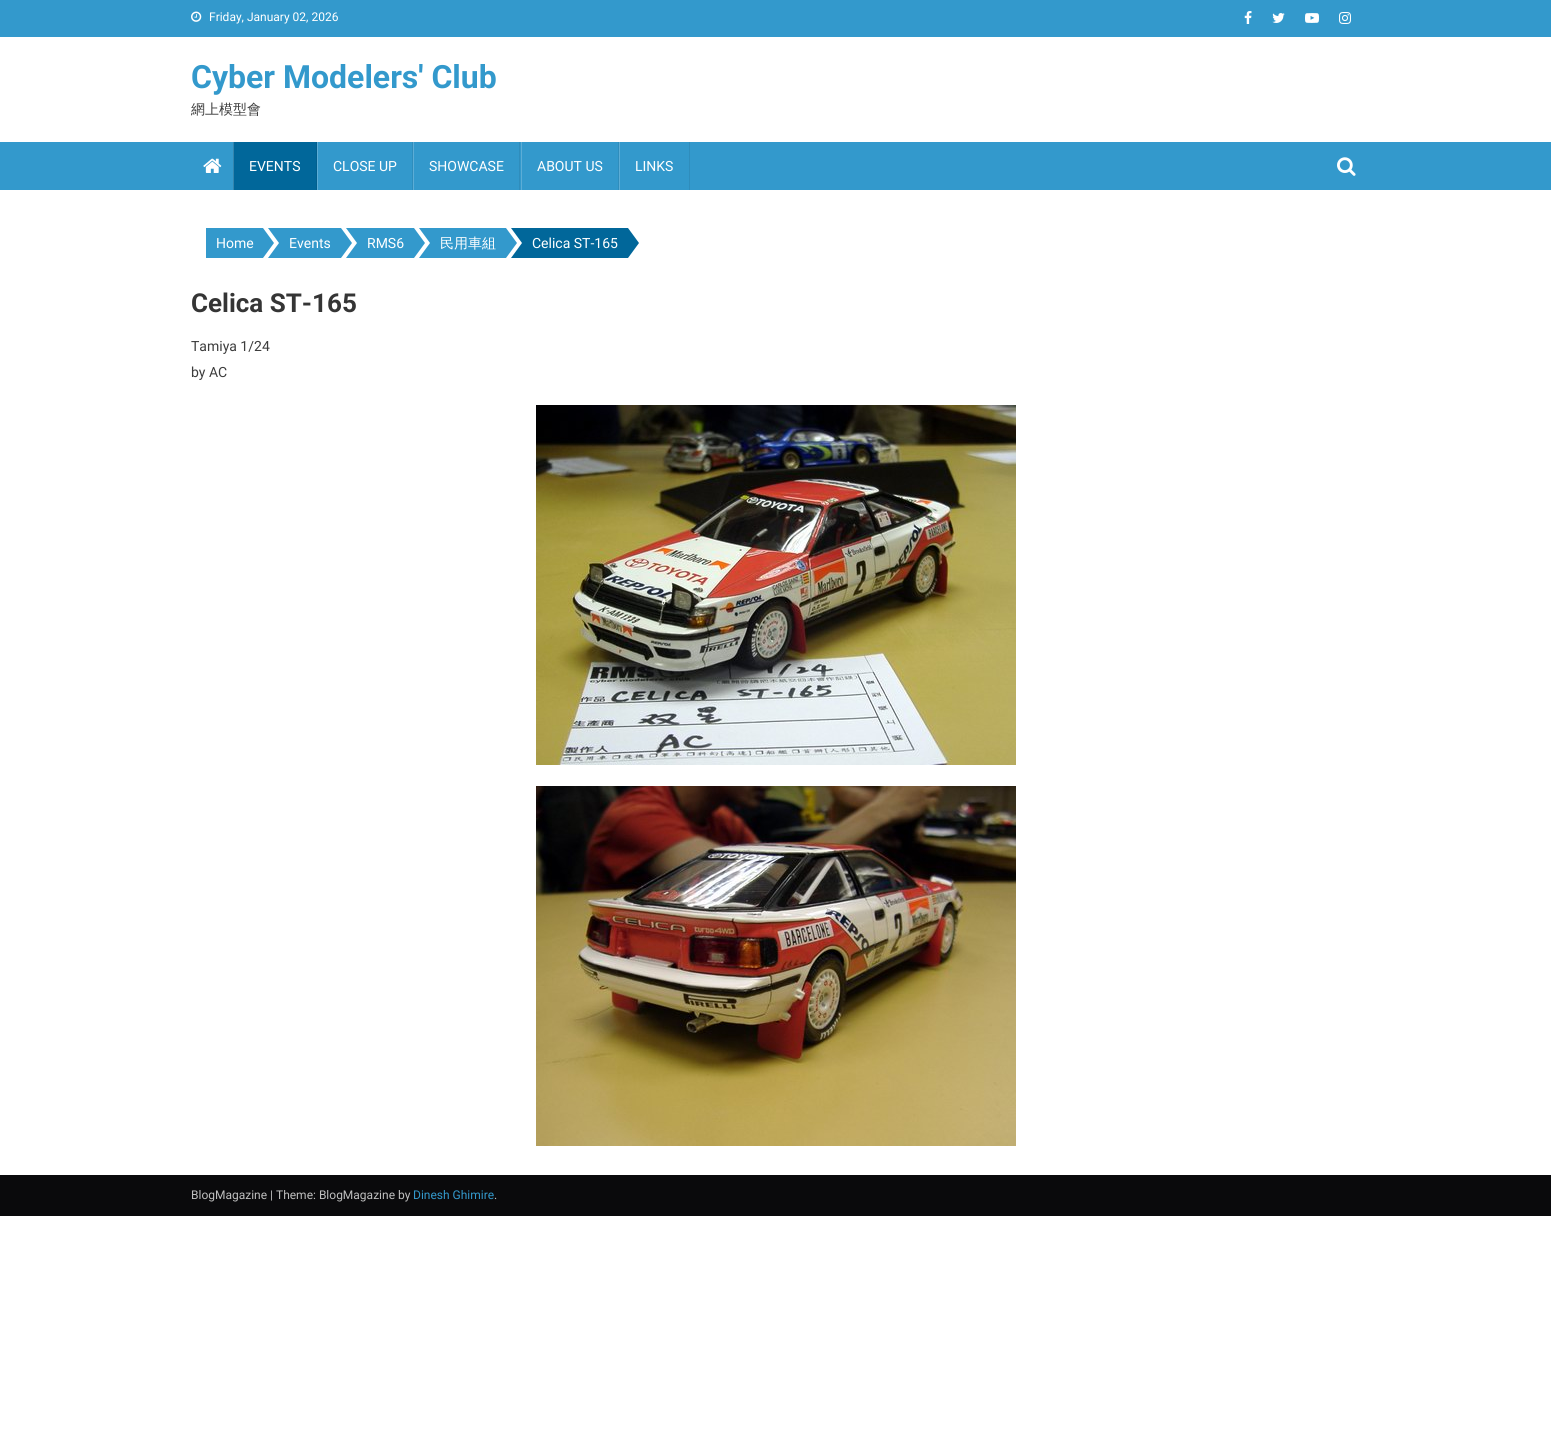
#include <cairo.h>
#include <math.h>
#include <stddef.h>


static void rgb(cairo_t *cr, int r, int g, int b)
{
	cairo_set_source_rgb(cr, r / 255.0, g / 255.0, b / 255.0);
}

static void face(cairo_t *cr, const char *family, double size, int italic, int bold)
{
	cairo_select_font_face(cr, family, italic ? CAIRO_FONT_SLANT_ITALIC : CAIRO_FONT_SLANT_NORMAL,
		bold ? CAIRO_FONT_WEIGHT_BOLD : CAIRO_FONT_WEIGHT_NORMAL);
	cairo_set_font_size(cr, size);
}

static void label(cairo_t *cr, double x, double y, const char *s)
{
	cairo_move_to(cr, x, y);
	cairo_show_text(cr, s);
}

static void rect(cairo_t *cr, double x, double y, double w, double h)
{
	cairo_rectangle(cr, x, y, w, h);
	cairo_fill(cr);
}

static void image(cairo_t *cr, const char *path, double x, double y, double w, double h)
{
	cairo_surface_t *image = cairo_image_surface_create_from_png(path);
	cairo_save(cr);
	cairo_set_source_surface(cr, image, x, y);
	cairo_rectangle(cr, x, y, w, h);
	cairo_fill(cr);
	cairo_restore(cr);
	cairo_surface_destroy(image);
}

static void draw(cairo_t *cr) {
	rgb(cr, 255, 255, 255);
	cairo_paint(cr);
	rgb(cr, 51, 153, 204);
	rect(cr, 0, 0, 1551, 37);
	image(cr, "image0.png", 191, 11, 11, 11);
	face(cr, "Roboto", 12, 0, 0);
	rgb(cr, 255, 255, 255);
	label(cr, 209, 21, "Friday, January 02, 2026");
	image(cr, "image1.png", 1244, 11, 8, 13);
	image(cr, "image2.png", 1272, 13, 13, 10);
	image(cr, "image3.png", 1305, 13, 14, 10);
	image(cr, "image4.png", 1339, 12, 12, 12);
	face(cr, "Roboto", 32, 0, 1);
	rgb(cr, 51, 153, 204);
	label(cr, 191, 88, "Cyber Modelers' Club");
	face(cr, "WenQuanYi Zen Hei Medium", 14, 0, 0);
	rgb(cr, 61, 61, 61);
	label(cr, 191, 114, "網上模型會");
	rgb(cr, 51, 153, 204);
	rect(cr, 0, 142, 1551, 48);
	image(cr, "image5.png", 203, 158, 19, 15);
	rgb(cr, 1, 103, 154);
	rect(cr, 234, 142, 82, 48);
	rgb(cr, 1, 95, 142);
	rect(cr, 316, 142, 1, 48);
	rgb(cr, 52, 133, 174);
	rect(cr, 233, 142, 1, 48);
	face(cr, "Roboto", 14, 0, 0);
	rgb(cr, 255, 255, 255);
	label(cr, 249, 171, "EVENTS");
	rgb(cr, 47, 141, 188);
	rect(cr, 412, 142, 1, 48);
	rgb(cr, 92, 173, 214);
	rect(cr, 317, 142, 1, 48);
	rgb(cr, 255, 255, 255);
	label(cr, 333, 171, "CLOSE UP");
	rgb(cr, 47, 141, 188);
	rect(cr, 519, 142, 1, 48);
	rgb(cr, 92, 173, 214);
	rect(cr, 413, 142, 1, 48);
	rgb(cr, 255, 255, 255);
	label(cr, 429, 171, "SHOWCASE");
	rgb(cr, 47, 141, 188);
	rect(cr, 618, 142, 1, 48);
	rgb(cr, 92, 173, 214);
	rect(cr, 521, 142, 1, 48);
	rgb(cr, 255, 255, 255);
	label(cr, 537, 171, "ABOUT US");
	rgb(cr, 47, 141, 188);
	rect(cr, 689, 142, 1, 48);
	rgb(cr, 92, 173, 214);
	rect(cr, 619, 142, 1, 48);
	rgb(cr, 255, 255, 255);
	label(cr, 635, 171, "LINKS");
	image(cr, "image6.png", 1337, 157, 19, 19);
	rgb(cr, 51, 153, 204);
	rect(cr, 206, 228, 57, 30);
	rgb(cr, 255, 255, 255);
	label(cr, 216, 248, "Home");
	rgb(cr, 51, 153, 204);
	cairo_new_path(cr);
	cairo_move_to(cr, 263, 258);
	cairo_line_to(cr, 263, 228);
	cairo_line_to(cr, 274, 243);
	cairo_close_path(cr);
	cairo_fill(cr);
	cairo_new_path(cr);
	cairo_move_to(cr, 268, 228);
	cairo_line_to(cr, 279, 228);
	cairo_line_to(cr, 279, 243);
	cairo_close_path(cr);
	cairo_move_to(cr, 279, 258);
	cairo_line_to(cr, 268, 258);
	cairo_line_to(cr, 279, 243);
	cairo_close_path(cr);
	cairo_fill(cr);
	rect(cr, 279, 228, 62, 30);
	rgb(cr, 255, 255, 255);
	label(cr, 289, 248, "Events");
	rgb(cr, 51, 153, 204);
	cairo_new_path(cr);
	cairo_move_to(cr, 341, 258);
	cairo_line_to(cr, 341, 228);
	cairo_line_to(cr, 352, 243);
	cairo_close_path(cr);
	cairo_fill(cr);
	cairo_new_path(cr);
	cairo_move_to(cr, 346, 228);
	cairo_line_to(cr, 357, 228);
	cairo_line_to(cr, 357, 243);
	cairo_close_path(cr);
	cairo_move_to(cr, 357, 258);
	cairo_line_to(cr, 346, 258);
	cairo_line_to(cr, 357, 243);
	cairo_close_path(cr);
	cairo_fill(cr);
	rect(cr, 357, 228, 57, 30);
	rgb(cr, 255, 255, 255);
	label(cr, 367, 248, "RMS6");
	rgb(cr, 51, 153, 204);
	cairo_new_path(cr);
	cairo_move_to(cr, 414, 258);
	cairo_line_to(cr, 414, 228);
	cairo_line_to(cr, 425, 243);
	cairo_close_path(cr);
	cairo_fill(cr);
	cairo_new_path(cr);
	cairo_move_to(cr, 419, 228);
	cairo_line_to(cr, 430, 228);
	cairo_line_to(cr, 430, 243);
	cairo_close_path(cr);
	cairo_move_to(cr, 430, 258);
	cairo_line_to(cr, 419, 258);
	cairo_line_to(cr, 430, 243);
	cairo_close_path(cr);
	cairo_fill(cr);
	rect(cr, 430, 228, 76, 30);
	face(cr, "WenQuanYi Zen Hei Medium", 14, 0, 0);
	rgb(cr, 255, 255, 255);
	label(cr, 440, 248, "民用車組");
	rgb(cr, 51, 153, 204);
	cairo_new_path(cr);
	cairo_move_to(cr, 506, 258);
	cairo_line_to(cr, 506, 228);
	cairo_line_to(cr, 517, 243);
	cairo_close_path(cr);
	cairo_fill(cr);
	rgb(cr, 1, 103, 154);
	cairo_new_path(cr);
	cairo_move_to(cr, 511, 228);
	cairo_line_to(cr, 522, 228);
	cairo_line_to(cr, 522, 243);
	cairo_close_path(cr);
	cairo_move_to(cr, 522, 258);
	cairo_line_to(cr, 511, 258);
	cairo_line_to(cr, 522, 243);
	cairo_close_path(cr);
	cairo_fill(cr);
	rect(cr, 522, 228, 106, 30);
	face(cr, "Roboto", 14, 0, 0);
	rgb(cr, 255, 255, 255);
	label(cr, 532, 248, "Celica ST-165");
	rgb(cr, 1, 103, 154);
	cairo_new_path(cr);
	cairo_move_to(cr, 628, 258);
	cairo_line_to(cr, 628, 228);
	cairo_line_to(cr, 639, 243);
	cairo_close_path(cr);
	cairo_fill(cr);
	face(cr, "Roboto", 26, 0, 1);
	rgb(cr, 53, 53, 53);
	label(cr, 191, 312, "Celica ST-165");
	face(cr, "Roboto", 14, 0, 0);
	rgb(cr, 61, 61, 61);
	label(cr, 191, 351, "Tamiya 1/24");
	label(cr, 191, 377, "by AC");
	image(cr, "image7.png", 536, 405, 480, 360);
	image(cr, "image8.png", 536, 786, 480, 360);
	rgb(cr, 10, 10, 12);
	rect(cr, 0, 1175, 1551, 41);
	face(cr, "Roboto", 12, 0, 0);
	rgb(cr, 191, 191, 191);
	label(cr, 191, 1199, "BlogMagazine | Theme: BlogMagazine by");
	rgb(cr, 51, 153, 204);
	label(cr, 413, 1199, "Dinesh Ghimire");
	rgb(cr, 191, 191, 191);
	label(cr, 494, 1199, ".");
}

int main(void) {
	cairo_surface_t *surface = cairo_image_surface_create(CAIRO_FORMAT_RGB24, 1551, 1454);
	cairo_t *cr = cairo_create(surface);
	cairo_font_options_t *options = cairo_font_options_create();
	cairo_font_options_set_hint_metrics(options, CAIRO_HINT_METRICS_OFF);
	cairo_font_options_set_hint_style(options, CAIRO_HINT_STYLE_NONE);
	cairo_set_font_options(cr, options);
	cairo_set_miter_limit(cr, 4);
	draw(cr);
	cairo_surface_write_to_png(surface, "render.png");
	cairo_font_options_destroy(options);
	cairo_destroy(cr);
	cairo_surface_destroy(surface);
	return 0;
}
